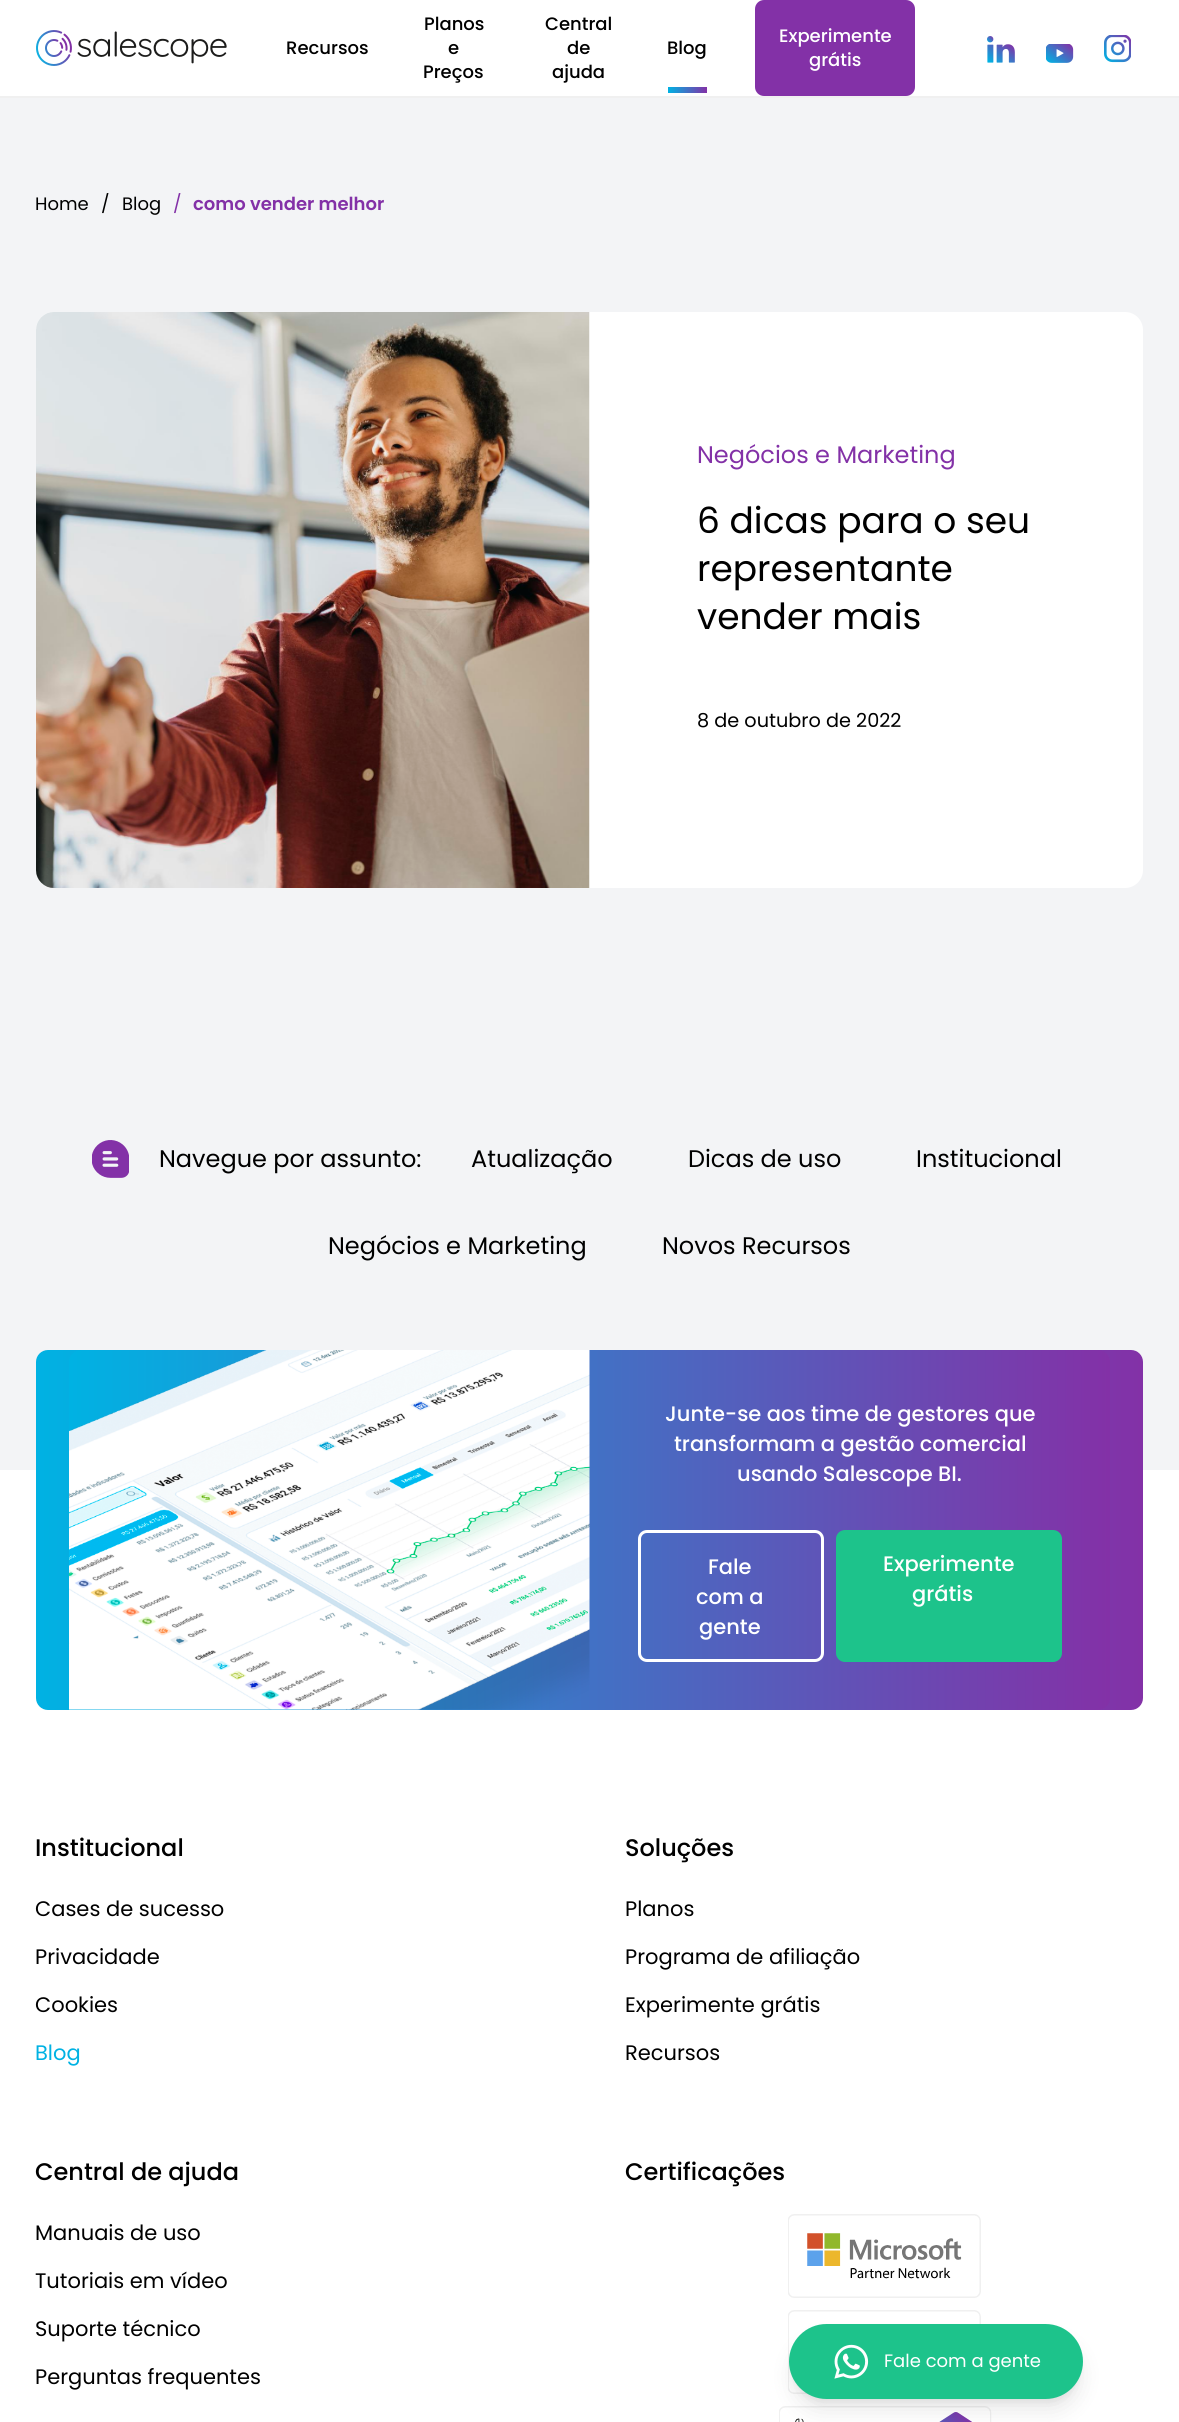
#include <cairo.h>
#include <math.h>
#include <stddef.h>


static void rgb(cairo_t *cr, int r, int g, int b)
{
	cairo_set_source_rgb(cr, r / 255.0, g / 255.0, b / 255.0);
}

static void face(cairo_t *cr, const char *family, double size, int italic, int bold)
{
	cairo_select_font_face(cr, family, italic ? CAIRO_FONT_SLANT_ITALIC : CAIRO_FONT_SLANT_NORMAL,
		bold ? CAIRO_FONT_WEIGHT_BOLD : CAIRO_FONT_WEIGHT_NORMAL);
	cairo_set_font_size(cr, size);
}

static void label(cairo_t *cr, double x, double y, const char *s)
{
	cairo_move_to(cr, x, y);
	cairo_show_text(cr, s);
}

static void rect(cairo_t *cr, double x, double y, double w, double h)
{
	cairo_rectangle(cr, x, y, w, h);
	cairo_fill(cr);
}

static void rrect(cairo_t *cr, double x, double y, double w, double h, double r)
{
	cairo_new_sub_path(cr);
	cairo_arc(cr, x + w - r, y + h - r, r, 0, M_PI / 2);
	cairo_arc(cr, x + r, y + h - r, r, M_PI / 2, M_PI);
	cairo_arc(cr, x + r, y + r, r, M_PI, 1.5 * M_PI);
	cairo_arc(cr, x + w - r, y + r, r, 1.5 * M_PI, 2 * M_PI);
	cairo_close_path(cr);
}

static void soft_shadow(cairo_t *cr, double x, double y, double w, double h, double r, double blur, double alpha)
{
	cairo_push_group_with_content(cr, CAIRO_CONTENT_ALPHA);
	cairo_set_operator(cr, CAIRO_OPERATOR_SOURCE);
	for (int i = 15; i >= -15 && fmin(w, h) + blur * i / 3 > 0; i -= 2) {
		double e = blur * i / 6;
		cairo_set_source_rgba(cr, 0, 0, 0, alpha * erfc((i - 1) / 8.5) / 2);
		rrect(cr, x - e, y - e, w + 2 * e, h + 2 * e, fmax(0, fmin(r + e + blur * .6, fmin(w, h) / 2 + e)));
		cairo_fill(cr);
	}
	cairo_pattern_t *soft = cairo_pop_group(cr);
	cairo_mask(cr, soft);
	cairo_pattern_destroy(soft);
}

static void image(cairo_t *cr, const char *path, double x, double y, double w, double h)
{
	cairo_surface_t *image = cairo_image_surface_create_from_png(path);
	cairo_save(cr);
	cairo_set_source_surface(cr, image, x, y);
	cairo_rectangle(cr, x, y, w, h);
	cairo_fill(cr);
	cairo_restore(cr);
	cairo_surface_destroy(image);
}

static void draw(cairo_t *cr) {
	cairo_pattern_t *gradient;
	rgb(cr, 255, 255, 255);
	cairo_paint(cr);
	rgb(cr, 240, 240, 240);
	rect(cr, 0, 96, 1179, 2);
	image(cr, "image0.png", 36, 30, 191, 36);
	face(cr, "Poppins Medium", 18, 0, 0);
	rgb(cr, 0, 0, 0);
	label(cr, 286, 54, "Recursos");
	label(cr, 424, 30, "Planos");
	label(cr, 448, 54, "e");
	label(cr, 423, 78, "Preços");
	label(cr, 545, 30, "Central");
	label(cr, 567, 54, "de");
	label(cr, 552, 78, "ajuda");
	label(cr, 667, 54, "Blog");
	gradient = cairo_pattern_create_linear(668, 90, 707, 90);
	cairo_pattern_add_color_stop_rgba(gradient, 0, 0, 0.698, 0.89, 1);
	cairo_pattern_add_color_stop_rgba(gradient, 1, 0.514, 0.192, 0.655, 1);
	cairo_set_source(cr, gradient);
	cairo_pattern_destroy(gradient);
	rect(cr, 668, 87, 39, 6);
	rgb(cr, 131, 49, 167);
	rrect(cr, 755, 0, 160, 96, 9);
	cairo_fill(cr);
	rgb(cr, 255, 255, 255);
	label(cr, 779, 42, "Experimente");
	label(cr, 809, 66, "grátis");
	image(cr, "image1.png", 987, 36, 28, 27);
	image(cr, "image2.png", 1046, 44, 28, 19);
	image(cr, "image3.png", 1104, 35, 27, 28);
	rgb(cr, 243, 244, 246);
	rect(cr, 0, 98, 1179, 1372);
	face(cr, "Poppins", 18, 0, 0);
	rgb(cr, 0, 0, 0);
	label(cr, 35, 210, "Home");
	label(cr, 101, 210, "/");
	label(cr, 122, 210, "Blog");
	rgb(cr, 131, 49, 167);
	label(cr, 173, 210, "/");
	face(cr, "Poppins SemiBold", 18, 0, 0);
	label(cr, 193, 210, "como vender melhor");
	rgb(cr, 255, 255, 255);
	rrect(cr, 36, 312, 1107, 576, 18);
	cairo_fill(cr);
	image(cr, "image4.png", 36, 312, 554, 576);
	face(cr, "Poppins", 24, 0, 0);
	rgb(cr, 131, 49, 167);
	label(cr, 697, 463, "Negócios e Marketing");
	face(cr, "Poppins", 36, 0, 0);
	rgb(cr, 0, 0, 0);
	label(cr, 697, 533, "6 dicas para o seu");
	label(cr, 697, 581, "representante");
	label(cr, 697, 629, "vender mais");
	face(cr, "Poppins", 19.25, 0, 0);
	label(cr, 697, 727, "8 de outubro de 2022");
	image(cr, "image5.png", 92, 1140, 37, 38);
	face(cr, "Poppins", 24, 0, 0);
	label(cr, 159, 1167, "Navegue por assunto:");
	label(cr, 471, 1167, "Atualização");
	label(cr, 688, 1167, "Dicas de uso");
	label(cr, 916, 1167, "Institucional");
	label(cr, 328, 1254, "Negócios e Marketing");
	label(cr, 662, 1254, "Novos Recursos");
	gradient = cairo_pattern_create_linear(36, 1530, 1143, 1530);
	cairo_pattern_add_color_stop_rgba(gradient, 0, 0, 0.698, 0.89, 1);
	cairo_pattern_add_color_stop_rgba(gradient, 1, 0.514, 0.192, 0.655, 1);
	cairo_set_source(cr, gradient);
	cairo_pattern_destroy(gradient);
	rrect(cr, 36, 1350, 1107, 360, 12);
	cairo_fill(cr);
	gradient = cairo_pattern_create_linear(69, 1530, 1110, 1530);
	cairo_pattern_add_color_stop_rgba(gradient, 0, 0, 0.698, 0.89, 1);
	cairo_pattern_add_color_stop_rgba(gradient, 1, 0.514, 0.192, 0.655, 1);
	cairo_set_source(cr, gradient);
	cairo_pattern_destroy(gradient);
	rrect(cr, 69, 1350, 1041, 360, 12);
	cairo_fill(cr);
	image(cr, "image6.png", 69, 1350, 521, 360);
	face(cr, "Poppins Medium", 21, 0, 0);
	rgb(cr, 255, 255, 255);
	label(cr, 665, 1421, "Junte-se aos time de gestores que");
	label(cr, 674, 1451, "transformam a gestão comercial");
	label(cr, 737, 1481, "usando Salescope BI.");
	rrect(cr, 639.5, 1531.5, 183, 129, 7.5);
	cairo_set_line_width(cr, 3);
	cairo_stroke(cr);
	label(cr, 708, 1574, "Fale");
	label(cr, 696, 1604, "com a");
	label(cr, 699, 1634, "gente");
	rgb(cr, 29, 195, 139);
	rrect(cr, 836, 1530, 226, 132, 9);
	cairo_fill(cr);
	rgb(cr, 255, 255, 255);
	label(cr, 883, 1571, "Experimente");
	label(cr, 912, 1601, "grátis");
	face(cr, "Poppins Medium", 24, 0, 0);
	rgb(cr, 0, 0, 0);
	label(cr, 35, 1856, "Institucional");
	face(cr, "Poppins", 21, 0, 0);
	label(cr, 35, 1916, "Cases de sucesso");
	label(cr, 35, 1964, "Privacidade");
	label(cr, 35, 2012, "Cookies");
	rgb(cr, 0, 178, 227);
	label(cr, 35, 2060, "Blog");
	face(cr, "Poppins Medium", 24, 0, 0);
	rgb(cr, 0, 0, 0);
	label(cr, 625, 1856, "Soluções");
	face(cr, "Poppins", 21, 0, 0);
	label(cr, 625, 1916, "Planos");
	label(cr, 625, 1964, "Programa de afiliação");
	label(cr, 625, 2012, "Experimente grátis");
	label(cr, 625, 2060, "Recursos");
	face(cr, "Poppins Medium", 24, 0, 0);
	label(cr, 35, 2180, "Central de ajuda");
	face(cr, "Poppins", 21, 0, 0);
	label(cr, 35, 2240, "Manuais de uso");
	label(cr, 35, 2288, "Tutoriais em vídeo");
	label(cr, 35, 2336, "Suporte técnico");
	label(cr, 35, 2384, "Perguntas frequentes");
	face(cr, "Poppins Medium", 24, 0, 0);
	label(cr, 625, 2180, "Certificações");
	image(cr, "image7.png", 788, 2214, 193, 84);
	image(cr, "image8.png", 788, 2310, 193, 84);
	image(cr, "image9.png", 779, 2406, 213, 16);
	rgb(cr, 0, 0, 0);
	soft_shadow(cr, 795, 2336, 282, 63, 31.5, 4.5, 0.1);
	soft_shadow(cr, 794, 2343, 285, 66, 33, 11, 0.1);
	rgb(cr, 29, 195, 139);
	rrect(cr, 789, 2324, 294, 75, 37.5);
	cairo_fill(cr);
	image(cr, "image10.png", 834, 2344, 35, 35);
	face(cr, "Poppins", 18, 0, 0);
	rgb(cr, 255, 255, 255);
	label(cr, 884, 2367, "Fale com a gente");
}

int main(void) {
	cairo_surface_t *surface = cairo_image_surface_create(CAIRO_FORMAT_RGB24, 1179, 2422);
	cairo_t *cr = cairo_create(surface);
	cairo_font_options_t *options = cairo_font_options_create();
	cairo_font_options_set_hint_metrics(options, CAIRO_HINT_METRICS_OFF);
	cairo_font_options_set_hint_style(options, CAIRO_HINT_STYLE_NONE);
	cairo_set_font_options(cr, options);
	cairo_set_miter_limit(cr, 4);
	draw(cr);
	cairo_surface_write_to_png(surface, "render.png");
	cairo_font_options_destroy(options);
	cairo_destroy(cr);
	cairo_surface_destroy(surface);
	return 0;
}
